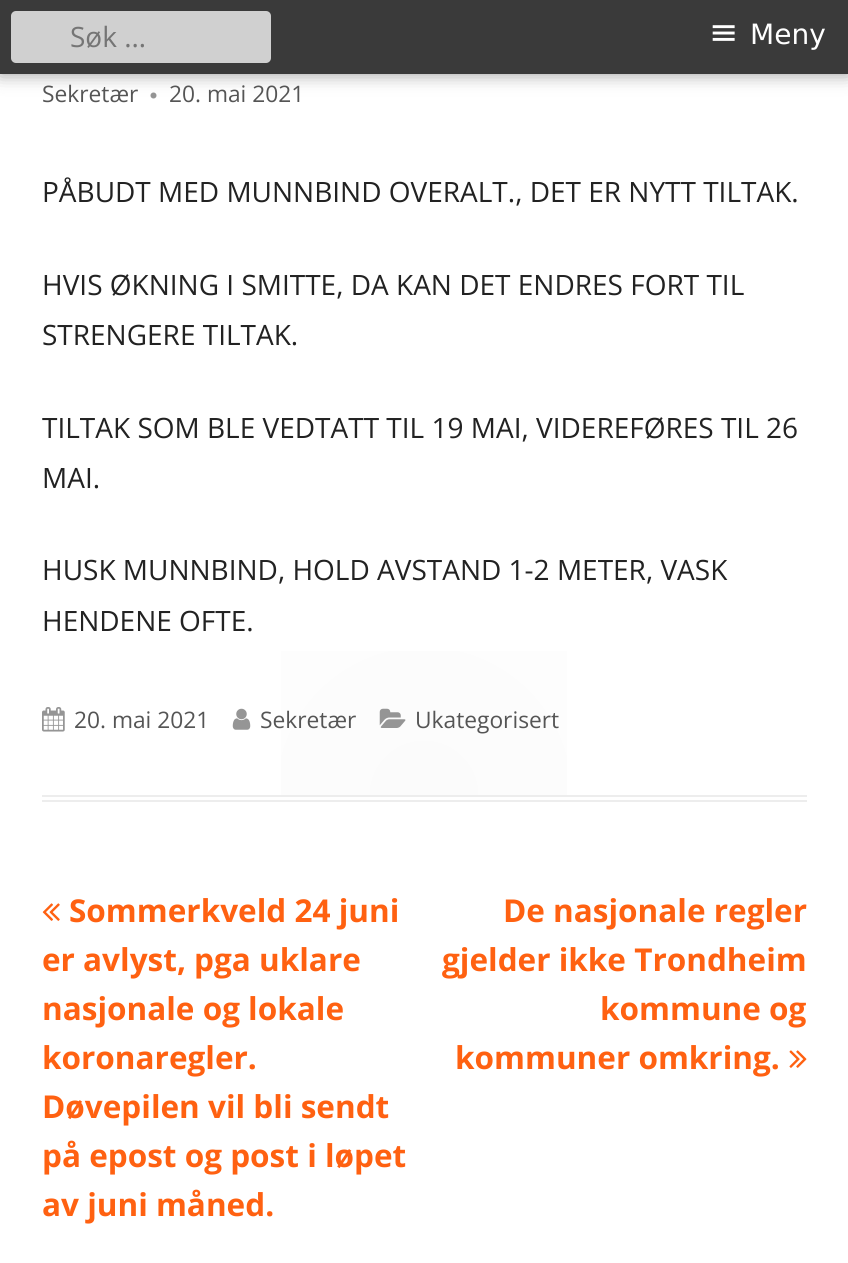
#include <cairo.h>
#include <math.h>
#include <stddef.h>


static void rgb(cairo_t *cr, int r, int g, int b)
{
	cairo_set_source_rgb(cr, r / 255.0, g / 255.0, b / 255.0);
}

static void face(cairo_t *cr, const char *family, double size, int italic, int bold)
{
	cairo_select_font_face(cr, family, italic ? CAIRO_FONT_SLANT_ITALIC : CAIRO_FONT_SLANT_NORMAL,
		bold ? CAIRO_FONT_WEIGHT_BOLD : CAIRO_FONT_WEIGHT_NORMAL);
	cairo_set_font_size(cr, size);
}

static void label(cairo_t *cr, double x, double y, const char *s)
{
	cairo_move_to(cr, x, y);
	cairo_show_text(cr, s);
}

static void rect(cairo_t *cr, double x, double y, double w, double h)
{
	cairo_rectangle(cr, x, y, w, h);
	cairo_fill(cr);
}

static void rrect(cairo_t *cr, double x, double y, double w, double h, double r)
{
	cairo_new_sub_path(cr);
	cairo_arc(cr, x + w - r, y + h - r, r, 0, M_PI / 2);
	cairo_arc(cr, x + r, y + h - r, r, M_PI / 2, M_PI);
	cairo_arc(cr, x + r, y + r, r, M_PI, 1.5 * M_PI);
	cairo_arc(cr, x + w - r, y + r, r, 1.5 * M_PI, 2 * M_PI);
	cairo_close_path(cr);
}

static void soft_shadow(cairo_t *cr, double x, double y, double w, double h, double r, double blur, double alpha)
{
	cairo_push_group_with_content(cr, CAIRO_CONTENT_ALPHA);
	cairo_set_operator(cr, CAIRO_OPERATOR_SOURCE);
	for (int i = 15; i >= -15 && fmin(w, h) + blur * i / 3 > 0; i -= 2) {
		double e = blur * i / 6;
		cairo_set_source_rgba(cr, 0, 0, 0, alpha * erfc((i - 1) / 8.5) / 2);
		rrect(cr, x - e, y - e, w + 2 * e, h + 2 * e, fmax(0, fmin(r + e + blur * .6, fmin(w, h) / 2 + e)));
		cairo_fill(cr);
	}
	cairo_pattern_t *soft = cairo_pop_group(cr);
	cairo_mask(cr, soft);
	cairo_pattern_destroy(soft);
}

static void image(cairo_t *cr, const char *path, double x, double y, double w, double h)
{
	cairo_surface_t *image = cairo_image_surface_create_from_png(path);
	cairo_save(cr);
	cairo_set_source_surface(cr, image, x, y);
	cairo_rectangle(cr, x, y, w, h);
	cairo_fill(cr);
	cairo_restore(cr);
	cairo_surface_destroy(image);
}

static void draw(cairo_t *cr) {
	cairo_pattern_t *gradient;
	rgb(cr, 255, 255, 255);
	cairo_paint(cr);
	image(cr, "image0.png", 150, 92, 7, 7);
	rgb(cr, 0, 0, 0);
	soft_shadow(cr, 0, 0, 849, 74, 0, 9, 0.4);
	rgb(cr, 58, 58, 58);
	rect(cr, 0, 0, 848, 74);
	rgb(cr, 208, 208, 208);
	rrect(cr, 11, 11, 260, 52, 5);
	cairo_fill(cr);
	face(cr, "Open Sans", 28, 0, 0);
	rgb(cr, 117, 117, 117);
	label(cr, 70, 47, "Søk …");
	face(cr, "DejaVu Sans", 35, 0, 0);
	rgb(cr, 255, 255, 255);
	label(cr, 709, 44, "≡");
	face(cr, "DejaVu Sans", 28, 0, 0);
	label(cr, 750, 44, "Meny");
	gradient = cairo_pattern_create_radial(424, 795, 0, 424, 795, 382);
	cairo_pattern_add_color_stop_rgba(gradient, 0, 0.984, 0.984, 0.984, 1);
	cairo_pattern_add_color_stop_rgba(gradient, 1, 1, 1, 1, 1);
	cairo_set_source(cr, gradient);
	cairo_pattern_destroy(gradient);
	rect(cr, 281, 651, 286, 144);
	rgb(cr, 237, 237, 237);
	rect(cr, 42, 795, 765, 2);
	rect(cr, 42, 800, 765, 2);
	face(cr, "Open Sans", 22.75, 0, 0);
	rgb(cr, 85, 85, 85);
	label(cr, 42, 102, "Sekretær");
	label(cr, 169, 102, "20. mai 2021");
	face(cr, "Open Sans", 28, 0, 0);
	rgb(cr, 34, 34, 34);
	label(cr, 42, 202, "PÅBUDT MED MUNNBIND OVERALT., DET ER NYTT TILTAK.");
	label(cr, 42, 295, "HVIS ØKNING I SMITTE, DA KAN DET ENDRES FORT TIL");
	label(cr, 42, 345, "STRENGERE TILTAK.");
	label(cr, 42, 438, "TILTAK SOM BLE VEDTATT TIL 19 MAI, VIDEREFØRES TIL 26");
	label(cr, 42, 488, "MAI.");
	label(cr, 42, 580, "HUSK MUNNBIND, HOLD AVSTAND 1-2 METER, VASK");
	label(cr, 42, 631, "HENDENE OFTE.");
	image(cr, "image1.png", 42, 707, 23, 25);
	face(cr, "Open Sans", 22.75, 0, 0);
	rgb(cr, 85, 85, 85);
	label(cr, 74, 728, "20. mai 2021");
	image(cr, "image2.png", 232, 708, 19, 22);
	label(cr, 260, 728, "Sekretær");
	image(cr, "image3.png", 379, 708, 27, 20);
	label(cr, 415, 728, "Ukategorisert");
	image(cr, "image4.png", 42, 903, 18, 18);
	face(cr, "Open Sans", 31.5, 0, 1);
	rgb(cr, 255, 97, 17);
	label(cr, 69, 922, "Sommerkveld 24 juni");
	label(cr, 42, 971, "er avlyst, pga uklare");
	label(cr, 42, 1020, "nasjonale og lokale");
	label(cr, 42, 1069, "koronaregler.");
	label(cr, 42, 1118, "Døvepilen vil bli sendt");
	label(cr, 42, 1167, "på epost og post i løpet");
	label(cr, 42, 1216, "av juni måned.");
	label(cr, 503, 922, "De nasjonale regler");
	label(cr, 442, 971, "gjelder ikke Trondheim");
	label(cr, 600, 1020, "kommune og");
	label(cr, 455, 1069, "kommuner omkring.");
	image(cr, "image5.png", 789, 1050, 18, 18);
}

int main(void) {
	cairo_surface_t *surface = cairo_image_surface_create(CAIRO_FORMAT_RGB24, 848, 1263);
	cairo_t *cr = cairo_create(surface);
	cairo_font_options_t *options = cairo_font_options_create();
	cairo_font_options_set_hint_metrics(options, CAIRO_HINT_METRICS_OFF);
	cairo_font_options_set_hint_style(options, CAIRO_HINT_STYLE_NONE);
	cairo_set_font_options(cr, options);
	cairo_set_miter_limit(cr, 4);
	draw(cr);
	cairo_surface_write_to_png(surface, "render.png");
	cairo_font_options_destroy(options);
	cairo_destroy(cr);
	cairo_surface_destroy(surface);
	return 0;
}
